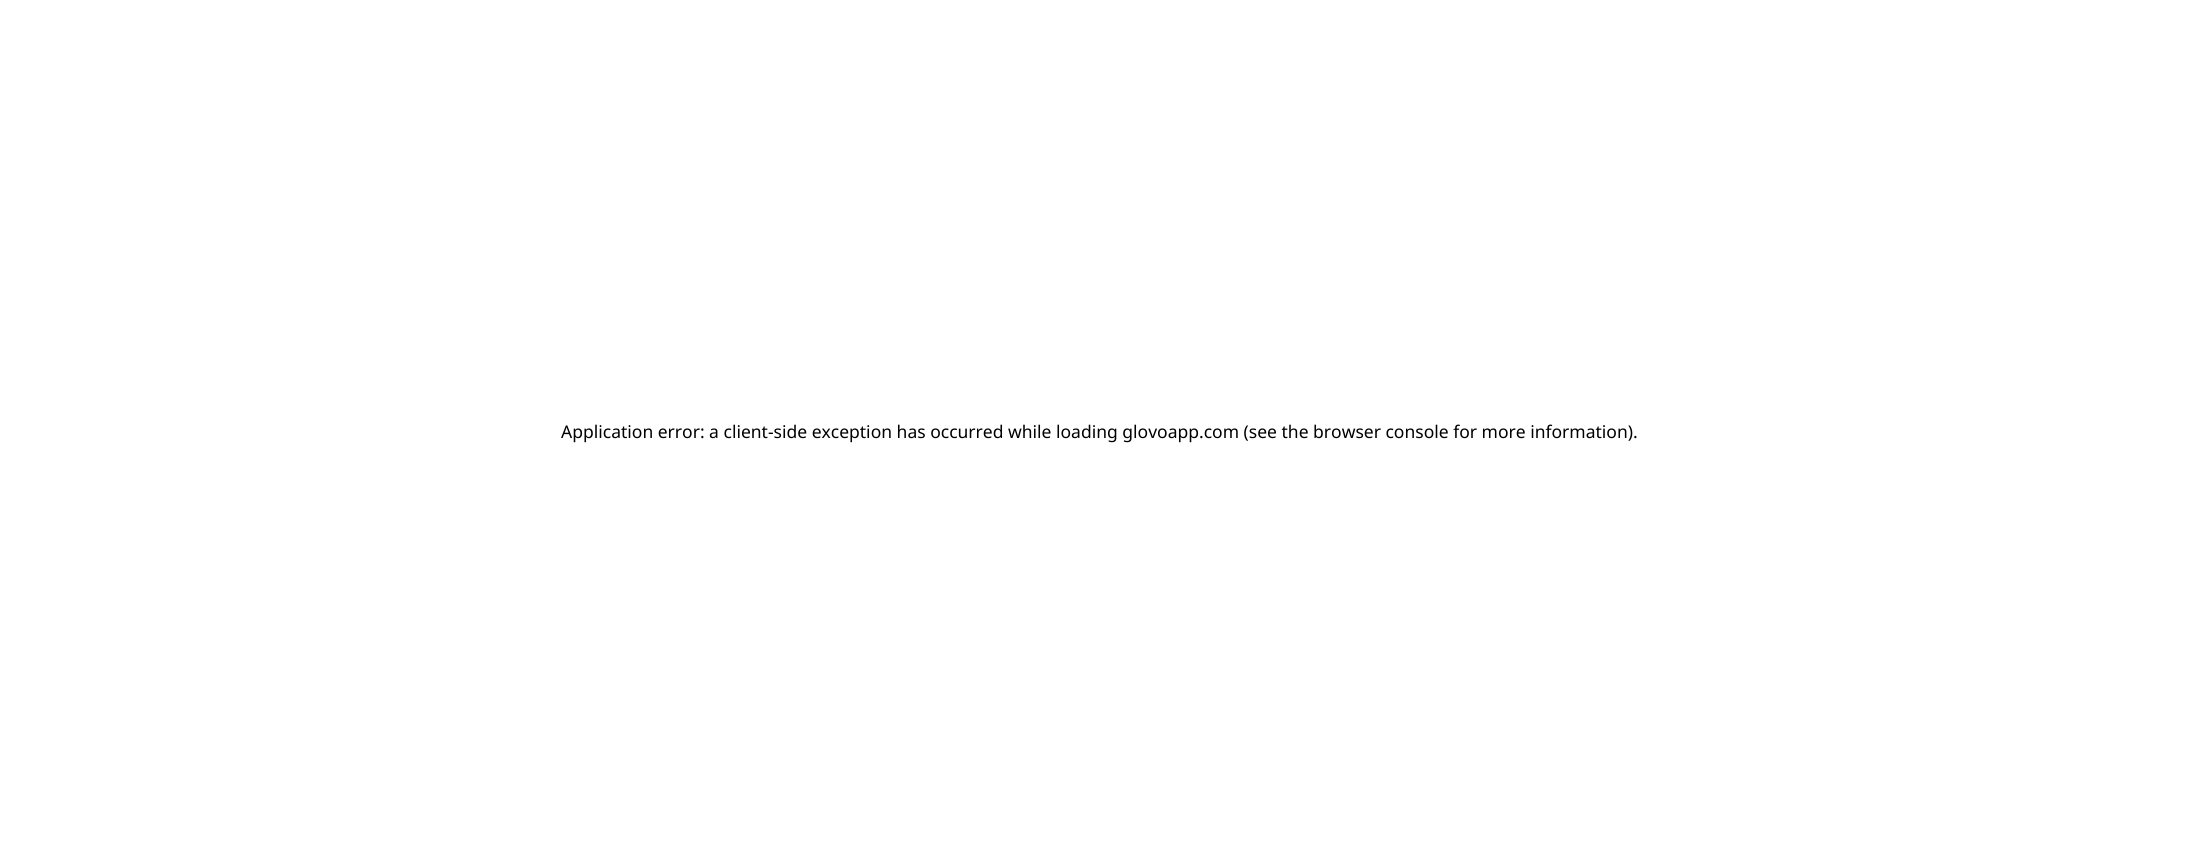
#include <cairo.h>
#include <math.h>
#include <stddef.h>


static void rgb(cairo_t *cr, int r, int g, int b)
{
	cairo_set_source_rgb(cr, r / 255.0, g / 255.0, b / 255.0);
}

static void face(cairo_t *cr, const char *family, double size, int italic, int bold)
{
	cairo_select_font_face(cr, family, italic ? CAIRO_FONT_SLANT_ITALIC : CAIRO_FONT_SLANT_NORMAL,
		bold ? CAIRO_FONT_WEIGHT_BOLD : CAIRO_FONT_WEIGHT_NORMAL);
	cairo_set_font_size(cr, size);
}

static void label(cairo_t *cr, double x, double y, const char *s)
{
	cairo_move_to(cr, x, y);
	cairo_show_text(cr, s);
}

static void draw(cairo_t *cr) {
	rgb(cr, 255, 255, 255);
	cairo_paint(cr);
	face(cr, "Noto Sans", 17.5, 0, 0);
	rgb(cr, 0, 0, 0);
	label(cr, 561, 438, "Application error: a client-side exception has occurred while loading glovoapp.com (see the browser console for more information).");
}

int main(void) {
	cairo_surface_t *surface = cairo_image_surface_create(CAIRO_FORMAT_RGB24, 2198, 863);
	cairo_t *cr = cairo_create(surface);
	cairo_font_options_t *options = cairo_font_options_create();
	cairo_font_options_set_hint_metrics(options, CAIRO_HINT_METRICS_OFF);
	cairo_font_options_set_hint_style(options, CAIRO_HINT_STYLE_NONE);
	cairo_set_font_options(cr, options);
	cairo_set_miter_limit(cr, 4);
	draw(cr);
	cairo_surface_write_to_png(surface, "render.png");
	cairo_font_options_destroy(options);
	cairo_destroy(cr);
	cairo_surface_destroy(surface);
	return 0;
}
